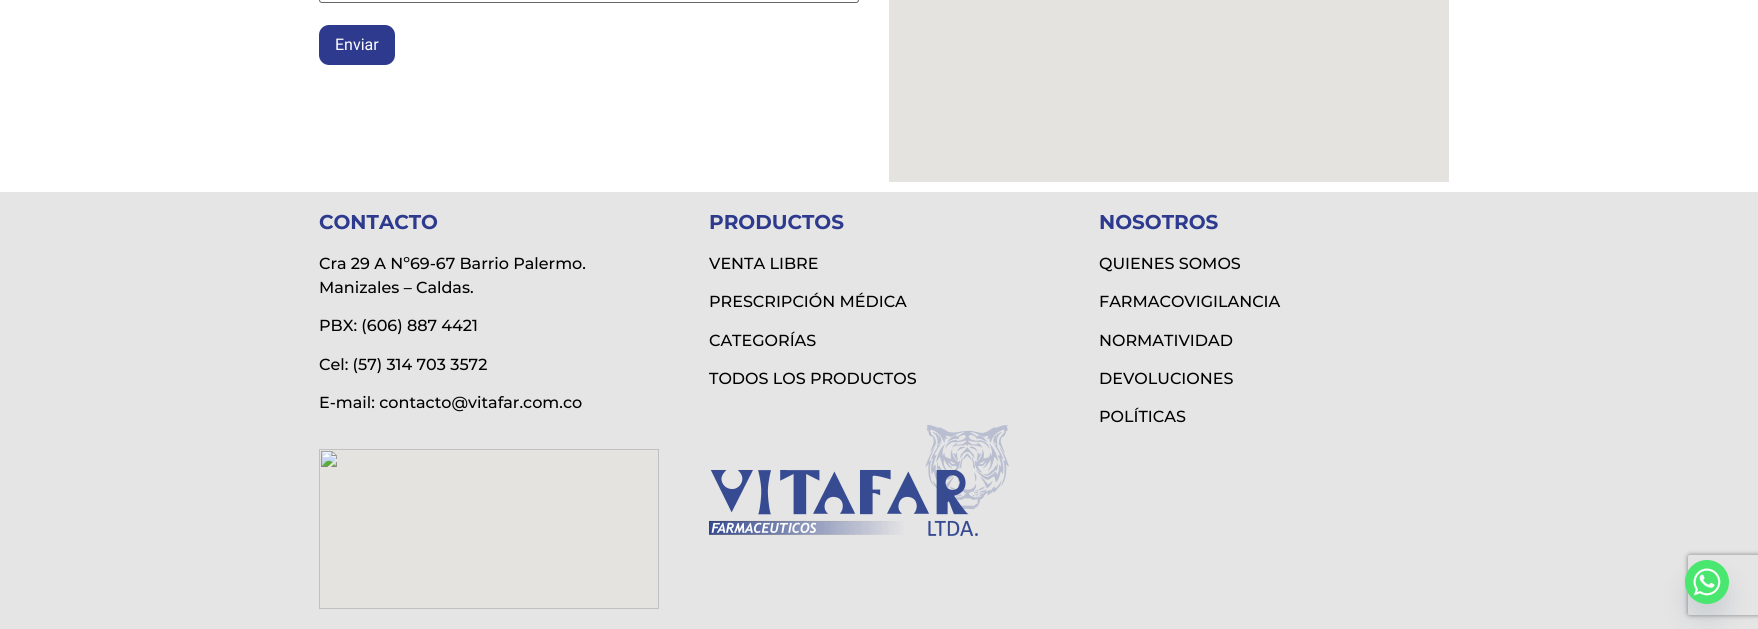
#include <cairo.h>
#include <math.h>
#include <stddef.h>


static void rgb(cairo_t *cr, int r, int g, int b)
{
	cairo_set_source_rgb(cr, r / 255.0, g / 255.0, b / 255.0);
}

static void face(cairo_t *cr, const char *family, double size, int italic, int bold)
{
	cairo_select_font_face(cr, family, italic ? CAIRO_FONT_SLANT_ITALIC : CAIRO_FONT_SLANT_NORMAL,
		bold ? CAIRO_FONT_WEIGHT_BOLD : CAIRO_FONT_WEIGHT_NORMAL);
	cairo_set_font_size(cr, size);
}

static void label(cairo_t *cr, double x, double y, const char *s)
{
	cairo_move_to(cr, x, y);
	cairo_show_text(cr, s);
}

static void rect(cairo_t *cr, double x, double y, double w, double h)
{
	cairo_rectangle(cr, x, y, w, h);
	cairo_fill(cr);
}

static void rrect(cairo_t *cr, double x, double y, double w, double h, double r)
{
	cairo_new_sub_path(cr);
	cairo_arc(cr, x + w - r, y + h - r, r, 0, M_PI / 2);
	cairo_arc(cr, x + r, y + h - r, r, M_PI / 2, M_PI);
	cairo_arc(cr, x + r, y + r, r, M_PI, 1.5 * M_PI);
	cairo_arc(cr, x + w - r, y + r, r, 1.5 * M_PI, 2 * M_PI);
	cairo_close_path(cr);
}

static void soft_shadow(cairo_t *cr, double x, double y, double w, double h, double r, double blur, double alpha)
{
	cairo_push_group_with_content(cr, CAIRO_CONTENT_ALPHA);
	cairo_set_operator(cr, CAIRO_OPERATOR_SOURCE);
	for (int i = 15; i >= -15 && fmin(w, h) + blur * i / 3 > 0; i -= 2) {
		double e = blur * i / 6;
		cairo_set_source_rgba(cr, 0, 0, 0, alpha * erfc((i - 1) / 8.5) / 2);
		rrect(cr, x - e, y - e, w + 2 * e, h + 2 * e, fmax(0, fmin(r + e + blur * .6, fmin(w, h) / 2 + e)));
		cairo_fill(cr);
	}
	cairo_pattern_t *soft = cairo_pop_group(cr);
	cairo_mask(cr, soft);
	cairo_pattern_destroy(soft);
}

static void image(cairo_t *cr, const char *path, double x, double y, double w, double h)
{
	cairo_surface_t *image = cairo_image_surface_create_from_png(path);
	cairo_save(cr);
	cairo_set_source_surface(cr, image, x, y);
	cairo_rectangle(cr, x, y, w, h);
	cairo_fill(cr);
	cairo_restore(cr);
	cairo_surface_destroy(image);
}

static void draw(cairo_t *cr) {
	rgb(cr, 255, 255, 255);
	cairo_paint(cr);
	rrect(cr, 319.5, -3.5, 539, 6, 2.5);
	rgb(cr, 102, 102, 102);
	cairo_set_line_width(cr, 1);
	cairo_stroke(cr);
	rgb(cr, 46, 58, 142);
	rrect(cr, 319, 25, 76, 40, 10);
	cairo_fill(cr);
	face(cr, "Roboto", 16, 0, 0);
	rgb(cr, 255, 255, 255);
	label(cr, 335, 50, "Enviar");
	rgb(cr, 229, 227, 223);
	rect(cr, 889, 0, 560, 182);
	rgb(cr, 229, 229, 229);
	rect(cr, 0, 192, 1758, 437);
	face(cr, "Montserrat", 20, 0, 1);
	rgb(cr, 46, 58, 142);
	label(cr, 319, 229, "CONTACTO");
	face(cr, "Montserrat Medium", 16, 0, 0);
	rgb(cr, 0, 0, 0);
	label(cr, 319, 269, "Cra 29 A Nº69-67 Barrio Palermo.");
	label(cr, 319, 293, "Manizales – Caldas.");
	label(cr, 319, 331, "PBX: (606) 887 4421");
	label(cr, 319, 370, "Cel: (57) 314 703 3572");
	label(cr, 319, 408, "E-mail: contacto@vitafar.com.co");
	image(cr, "image0.png", 319, 449, 340, 160);
	face(cr, "Montserrat", 20, 0, 1);
	rgb(cr, 46, 58, 142);
	label(cr, 709, 229, "PRODUCTOS");
	face(cr, "Montserrat Medium", 16, 0, 0);
	rgb(cr, 0, 0, 0);
	label(cr, 709, 269, "VENTA LIBRE");
	label(cr, 709, 307, "PRESCRIPCIÓN MÉDICA");
	label(cr, 709, 346, "CATEGORÍAS");
	label(cr, 709, 384, "TODOS LOS PRODUCTOS");
	image(cr, "image1.png", 709, 425, 300, 111);
	face(cr, "Montserrat", 20, 0, 1);
	rgb(cr, 46, 58, 142);
	label(cr, 1099, 229, "NOSOTROS");
	face(cr, "Montserrat Medium", 16, 0, 0);
	rgb(cr, 0, 0, 0);
	label(cr, 1099, 269, "QUIENES SOMOS");
	label(cr, 1099, 307, "FARMACOVIGILANCIA");
	label(cr, 1099, 346, "NORMATIVIDAD");
	label(cr, 1099, 384, "DEVOLUCIONES");
	label(cr, 1099, 422, "POLÍTICAS");
	rgb(cr, 73, 104, 126);
	soft_shadow(cr, 1685, 576, 44, 44, 22, 12, 0.16);
	cairo_save(cr);
	cairo_set_fill_rule(cr, CAIRO_FILL_RULE_EVEN_ODD);
	cairo_new_path(cr);
	cairo_move_to(cr, 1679, 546);
	cairo_line_to(cr, 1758, 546);
	cairo_line_to(cr, 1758, 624);
	cairo_line_to(cr, 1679, 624);
	cairo_close_path(cr);
	cairo_move_to(cr, 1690, 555);
	cairo_line_to(cr, 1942, 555);
	cairo_curve_to(cr, 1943, 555, 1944, 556, 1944, 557);
	cairo_line_to(cr, 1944, 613);
	cairo_curve_to(cr, 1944, 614, 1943, 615, 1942, 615);
	cairo_line_to(cr, 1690, 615);
	cairo_curve_to(cr, 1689, 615, 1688, 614, 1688, 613);
	cairo_line_to(cr, 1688, 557);
	cairo_curve_to(cr, 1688, 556, 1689, 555, 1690, 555);
	cairo_close_path(cr);
	cairo_clip(cr);
	rgb(cr, 128, 128, 128);
	soft_shadow(cr, 1688, 555, 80, 60, 2, 2.5, 1);
	cairo_restore(cr);
	image(cr, "image2.png", 1685, 560, 44, 44);
}

int main(void) {
	cairo_surface_t *surface = cairo_image_surface_create(CAIRO_FORMAT_RGB24, 1758, 629);
	cairo_t *cr = cairo_create(surface);
	cairo_font_options_t *options = cairo_font_options_create();
	cairo_font_options_set_hint_metrics(options, CAIRO_HINT_METRICS_OFF);
	cairo_font_options_set_hint_style(options, CAIRO_HINT_STYLE_NONE);
	cairo_set_font_options(cr, options);
	cairo_set_miter_limit(cr, 4);
	draw(cr);
	cairo_surface_write_to_png(surface, "render.png");
	cairo_font_options_destroy(options);
	cairo_destroy(cr);
	cairo_surface_destroy(surface);
	return 0;
}
